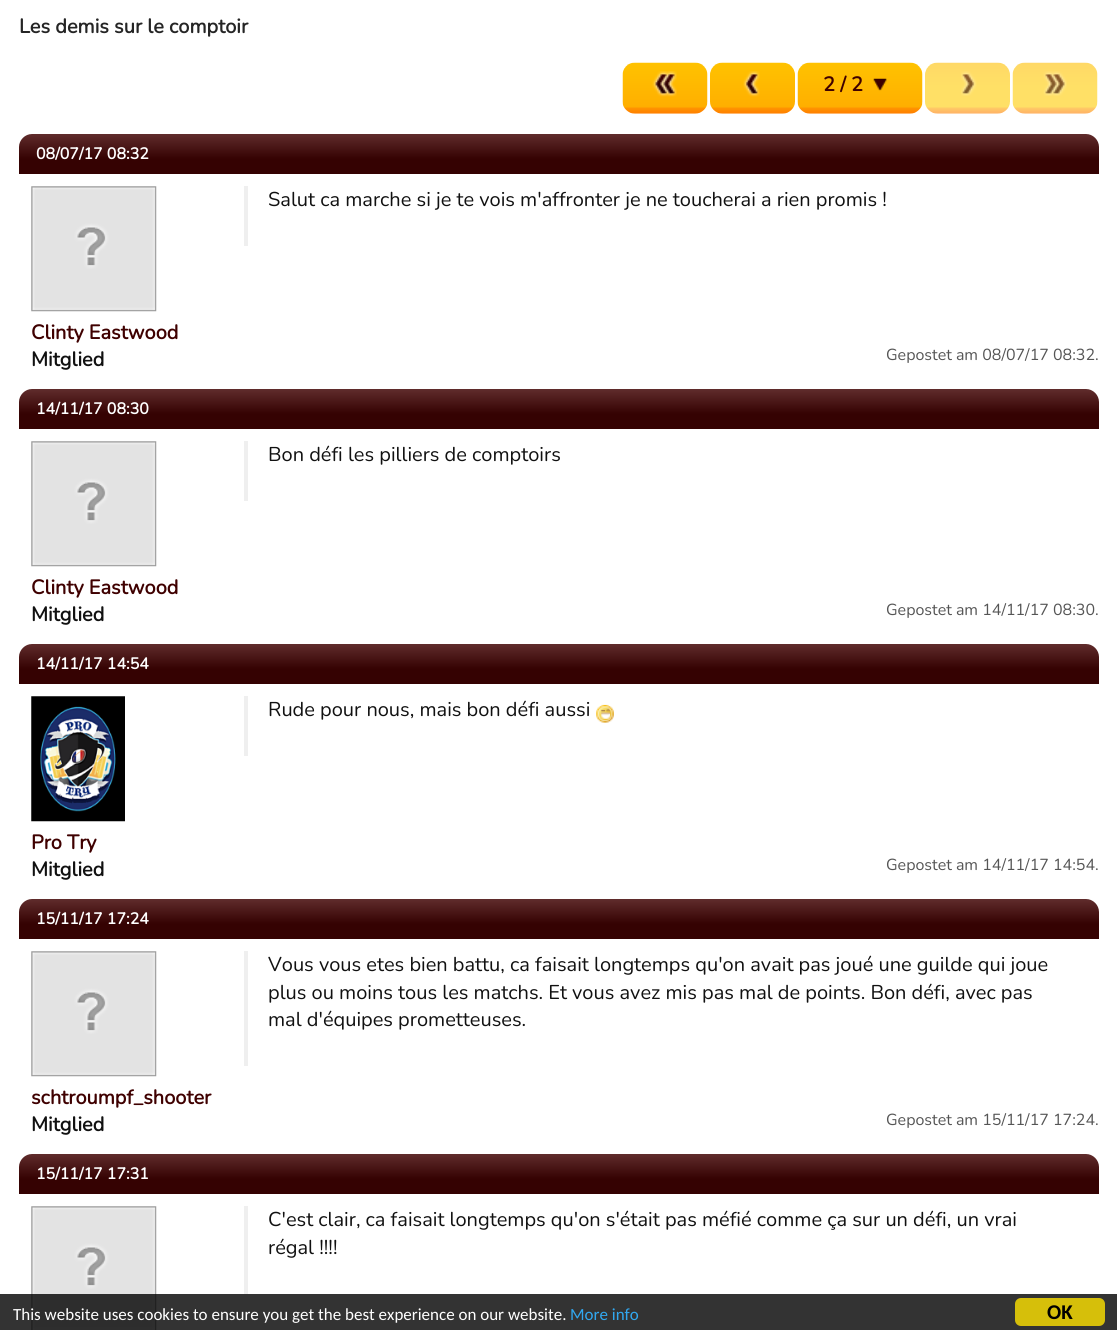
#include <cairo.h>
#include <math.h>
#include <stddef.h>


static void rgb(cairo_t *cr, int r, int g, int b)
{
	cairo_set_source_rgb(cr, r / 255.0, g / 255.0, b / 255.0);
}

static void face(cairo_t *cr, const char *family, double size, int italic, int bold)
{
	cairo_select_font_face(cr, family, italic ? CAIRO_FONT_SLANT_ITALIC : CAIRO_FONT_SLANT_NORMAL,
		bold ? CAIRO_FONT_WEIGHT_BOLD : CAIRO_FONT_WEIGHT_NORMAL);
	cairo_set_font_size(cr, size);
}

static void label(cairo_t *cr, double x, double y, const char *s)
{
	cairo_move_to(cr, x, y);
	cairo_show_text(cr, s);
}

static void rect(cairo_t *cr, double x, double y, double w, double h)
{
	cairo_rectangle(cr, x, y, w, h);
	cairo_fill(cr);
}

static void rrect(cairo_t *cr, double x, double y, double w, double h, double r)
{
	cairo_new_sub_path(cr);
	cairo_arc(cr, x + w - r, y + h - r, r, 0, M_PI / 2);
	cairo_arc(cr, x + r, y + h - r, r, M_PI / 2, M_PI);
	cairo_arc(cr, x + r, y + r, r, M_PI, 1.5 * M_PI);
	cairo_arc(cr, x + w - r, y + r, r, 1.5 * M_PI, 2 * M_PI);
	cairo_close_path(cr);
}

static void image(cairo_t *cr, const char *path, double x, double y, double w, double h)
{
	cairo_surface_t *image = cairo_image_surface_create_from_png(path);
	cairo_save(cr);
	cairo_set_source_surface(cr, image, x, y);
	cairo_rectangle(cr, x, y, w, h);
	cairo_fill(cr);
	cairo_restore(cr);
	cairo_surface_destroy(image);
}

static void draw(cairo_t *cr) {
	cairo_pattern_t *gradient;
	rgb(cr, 255, 255, 255);
	cairo_paint(cr);
	face(cr, "Nunito", 20, 0, 1);
	rgb(cr, 37, 37, 37);
	label(cr, 19, 33, "Les demis sur le comptoir");
	image(cr, "image0.png", 622, 62, 86, 52);
	image(cr, "image1.png", 652, 71, 25, 26);
	image(cr, "image2.png", 710, 62, 85, 52);
	image(cr, "image3.png", 743, 71, 17, 26);
	image(cr, "image4.png", 797, 62, 126, 52);
	rgb(cr, 63, 0, 0);
	label(cr, 823, 91, "2 / 2");
	image(cr, "image5.png", 873, 78, 14, 13);
	image(cr, "image6.png", 925, 62, 85, 52);
	image(cr, "image7.png", 961, 71, 16, 25);
	image(cr, "image8.png", 1012, 62, 86, 52);
	image(cr, "image9.png", 1043, 71, 24, 25);
	gradient = cairo_pattern_create_linear(559, 134, 559, 174);
	cairo_pattern_add_color_stop_rgba(gradient, 0, 0.376, 0.173, 0.173, 1);
	cairo_pattern_add_color_stop_rgba(gradient, 0.62, 0.208, 0.008, 0.008, 1);
	cairo_set_source(cr, gradient);
	cairo_pattern_destroy(gradient);
	cairo_new_path(cr);
	cairo_move_to(cr, 32, 134);
	cairo_line_to(cr, 1086, 134);
	cairo_curve_to(cr, 1093, 134, 1099, 140, 1099, 147);
	cairo_line_to(cr, 1099, 174);
	cairo_line_to(cr, 19, 174);
	cairo_line_to(cr, 19, 147);
	cairo_curve_to(cr, 19, 140, 25, 134, 32, 134);
	cairo_close_path(cr);
	cairo_fill(cr);
	face(cr, "Nunito", 16, 0, 1);
	rgb(cr, 255, 255, 255);
	label(cr, 36, 159, "08/07/17 08:32");
	image(cr, "image10.png", 31, 186, 126, 126);
	face(cr, "Nunito", 20, 0, 1);
	rgb(cr, 63, 0, 0);
	label(cr, 31, 339, "Clinty Eastwood");
	rgb(cr, 17, 17, 17);
	label(cr, 31, 366, "Mitglied");
	rgb(cr, 239, 239, 239);
	rect(cr, 244, 186, 4, 60);
	face(cr, "Nunito ExtraLight", 20, 0, 0);
	rgb(cr, 17, 17, 17);
	label(cr, 268, 206, "Salut ca marche si je te vois m'affronter je ne toucherai a rien promis !");
	face(cr, "Nunito ExtraLight", 16, 0, 0);
	rgb(cr, 85, 85, 85);
	label(cr, 886, 360, "Gepostet am 08/07/17 08:32.");
	gradient = cairo_pattern_create_linear(559, 389, 559, 429);
	cairo_pattern_add_color_stop_rgba(gradient, 0, 0.376, 0.173, 0.173, 1);
	cairo_pattern_add_color_stop_rgba(gradient, 0.62, 0.208, 0.008, 0.008, 1);
	cairo_set_source(cr, gradient);
	cairo_pattern_destroy(gradient);
	cairo_new_path(cr);
	cairo_move_to(cr, 32, 389);
	cairo_line_to(cr, 1086, 389);
	cairo_curve_to(cr, 1093, 389, 1099, 395, 1099, 402);
	cairo_line_to(cr, 1099, 429);
	cairo_line_to(cr, 19, 429);
	cairo_line_to(cr, 19, 402);
	cairo_curve_to(cr, 19, 395, 25, 389, 32, 389);
	cairo_close_path(cr);
	cairo_fill(cr);
	face(cr, "Nunito", 16, 0, 1);
	rgb(cr, 255, 255, 255);
	label(cr, 36, 414, "14/11/17 08:30");
	image(cr, "image10.png", 31, 441, 126, 126);
	face(cr, "Nunito", 20, 0, 1);
	rgb(cr, 63, 0, 0);
	label(cr, 31, 594, "Clinty Eastwood");
	rgb(cr, 17, 17, 17);
	label(cr, 31, 621, "Mitglied");
	rgb(cr, 239, 239, 239);
	rect(cr, 244, 441, 4, 60);
	face(cr, "Nunito ExtraLight", 20, 0, 0);
	rgb(cr, 17, 17, 17);
	label(cr, 268, 461, "Bon défi les pilliers de comptoirs");
	face(cr, "Nunito ExtraLight", 16, 0, 0);
	rgb(cr, 85, 85, 85);
	label(cr, 886, 615, "Gepostet am 14/11/17 08:30.");
	gradient = cairo_pattern_create_linear(559, 644, 559, 684);
	cairo_pattern_add_color_stop_rgba(gradient, 0, 0.376, 0.173, 0.173, 1);
	cairo_pattern_add_color_stop_rgba(gradient, 0.62, 0.208, 0.008, 0.008, 1);
	cairo_set_source(cr, gradient);
	cairo_pattern_destroy(gradient);
	cairo_new_path(cr);
	cairo_move_to(cr, 32, 644);
	cairo_line_to(cr, 1086, 644);
	cairo_curve_to(cr, 1093, 644, 1099, 650, 1099, 657);
	cairo_line_to(cr, 1099, 684);
	cairo_line_to(cr, 19, 684);
	cairo_line_to(cr, 19, 657);
	cairo_curve_to(cr, 19, 650, 25, 644, 32, 644);
	cairo_close_path(cr);
	cairo_fill(cr);
	face(cr, "Nunito", 16, 0, 1);
	rgb(cr, 255, 255, 255);
	label(cr, 36, 669, "14/11/17 14:54");
	image(cr, "image11.png", 31, 696, 94, 126);
	face(cr, "Nunito", 20, 0, 1);
	rgb(cr, 63, 0, 0);
	label(cr, 31, 849, "Pro Try");
	rgb(cr, 17, 17, 17);
	label(cr, 31, 876, "Mitglied");
	rgb(cr, 239, 239, 239);
	rect(cr, 244, 696, 4, 60);
	face(cr, "Nunito ExtraLight", 20, 0, 0);
	rgb(cr, 17, 17, 17);
	label(cr, 268, 716, "Rude pour nous, mais bon défi aussi");
	image(cr, "image12.png", 596, 704, 18, 19);
	face(cr, "Nunito ExtraLight", 16, 0, 0);
	rgb(cr, 85, 85, 85);
	label(cr, 886, 870, "Gepostet am 14/11/17 14:54.");
	gradient = cairo_pattern_create_linear(559, 899, 559, 939);
	cairo_pattern_add_color_stop_rgba(gradient, 0, 0.376, 0.173, 0.173, 1);
	cairo_pattern_add_color_stop_rgba(gradient, 0.62, 0.208, 0.008, 0.008, 1);
	cairo_set_source(cr, gradient);
	cairo_pattern_destroy(gradient);
	cairo_new_path(cr);
	cairo_move_to(cr, 32, 899);
	cairo_line_to(cr, 1086, 899);
	cairo_curve_to(cr, 1093, 899, 1099, 905, 1099, 912);
	cairo_line_to(cr, 1099, 939);
	cairo_line_to(cr, 19, 939);
	cairo_line_to(cr, 19, 912);
	cairo_curve_to(cr, 19, 905, 25, 899, 32, 899);
	cairo_close_path(cr);
	cairo_fill(cr);
	face(cr, "Nunito", 16, 0, 1);
	rgb(cr, 255, 255, 255);
	label(cr, 36, 924, "15/11/17 17:24");
	image(cr, "image10.png", 31, 951, 126, 126);
	face(cr, "Nunito", 20, 0, 1);
	rgb(cr, 63, 0, 0);
	label(cr, 31, 1104, "schtroumpf_shooter");
	rgb(cr, 17, 17, 17);
	label(cr, 31, 1131, "Mitglied");
	rgb(cr, 239, 239, 239);
	rect(cr, 244, 951, 4, 115);
	face(cr, "Nunito ExtraLight", 20, 0, 0);
	rgb(cr, 17, 17, 17);
	label(cr, 268, 971, "Vous vous etes bien battu, ca faisait longtemps qu'on avait pas joué une guilde qui joue");
	label(cr, 268, 999, "plus ou moins tous les matchs. Et vous avez mis pas mal de points. Bon défi, avec pas");
	label(cr, 268, 1026, "mal d'équipes prometteuses.");
	face(cr, "Nunito ExtraLight", 16, 0, 0);
	rgb(cr, 85, 85, 85);
	label(cr, 886, 1125, "Gepostet am 15/11/17 17:24.");
	gradient = cairo_pattern_create_linear(559, 1154, 559, 1194);
	cairo_pattern_add_color_stop_rgba(gradient, 0, 0.376, 0.173, 0.173, 1);
	cairo_pattern_add_color_stop_rgba(gradient, 0.62, 0.208, 0.008, 0.008, 1);
	cairo_set_source(cr, gradient);
	cairo_pattern_destroy(gradient);
	cairo_new_path(cr);
	cairo_move_to(cr, 32, 1154);
	cairo_line_to(cr, 1086, 1154);
	cairo_curve_to(cr, 1093, 1154, 1099, 1160, 1099, 1167);
	cairo_line_to(cr, 1099, 1194);
	cairo_line_to(cr, 19, 1194);
	cairo_line_to(cr, 19, 1167);
	cairo_curve_to(cr, 19, 1160, 25, 1154, 32, 1154);
	cairo_close_path(cr);
	cairo_fill(cr);
	face(cr, "Nunito", 16, 0, 1);
	rgb(cr, 255, 255, 255);
	label(cr, 36, 1179, "15/11/17 17:31");
	image(cr, "image13.png", 31, 1206, 126, 124);
	rgb(cr, 239, 239, 239);
	rect(cr, 244, 1206, 4, 88);
	face(cr, "Nunito ExtraLight", 20, 0, 0);
	rgb(cr, 17, 17, 17);
	label(cr, 268, 1226, "C'est clair, ca faisait longtemps qu'on s'était pas méfié comme ça sur un défi, un vrai");
	label(cr, 268, 1254, "régal !!!!");
	cairo_set_source_rgba(cr, 0, 0, 0, 0.8);
	rect(cr, 0, 1294, 1117, 36);
	face(cr, "Carlito", 17, 0, 0);
	rgb(cr, 255, 255, 255);
	label(cr, 13, 1320, "This website uses cookies to ensure you get the best experience on our website.");
	rgb(cr, 49, 168, 240);
	label(cr, 570, 1320, "More info");
	rgb(cr, 214, 191, 10);
	rrect(cr, 1015, 1298, 90, 28, 6);
	cairo_fill(cr);
	face(cr, "Carlito", 21, 0, 1);
	rgb(cr, 0, 0, 0);
	label(cr, 1047, 1319, "OK");
}

int main(void) {
	cairo_surface_t *surface = cairo_image_surface_create(CAIRO_FORMAT_RGB24, 1117, 1330);
	cairo_t *cr = cairo_create(surface);
	cairo_font_options_t *options = cairo_font_options_create();
	cairo_font_options_set_hint_metrics(options, CAIRO_HINT_METRICS_OFF);
	cairo_font_options_set_hint_style(options, CAIRO_HINT_STYLE_NONE);
	cairo_set_font_options(cr, options);
	cairo_set_miter_limit(cr, 4);
	draw(cr);
	cairo_surface_write_to_png(surface, "render.png");
	cairo_font_options_destroy(options);
	cairo_destroy(cr);
	cairo_surface_destroy(surface);
	return 0;
}
